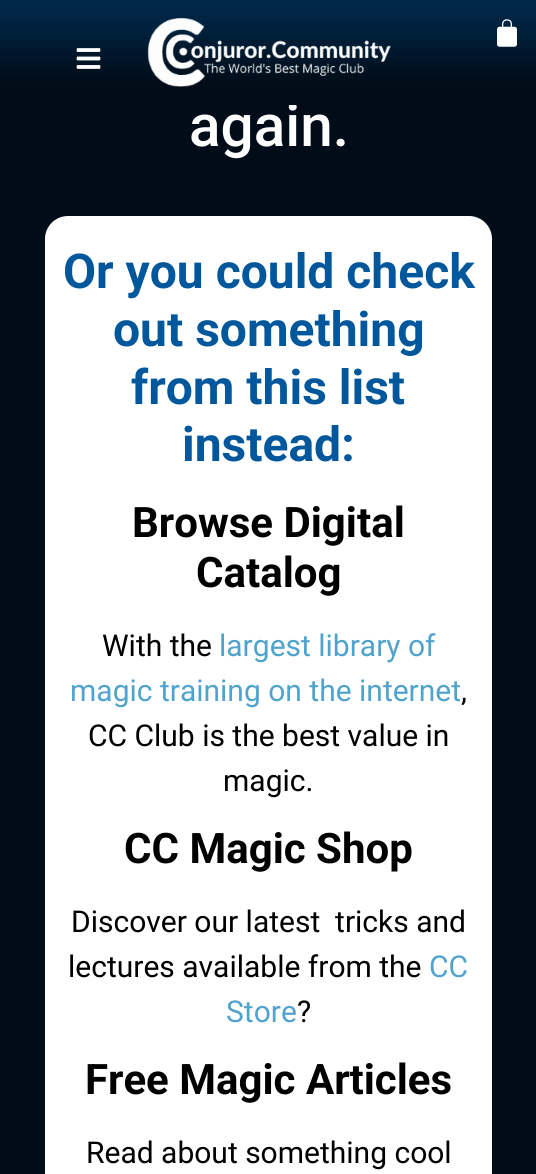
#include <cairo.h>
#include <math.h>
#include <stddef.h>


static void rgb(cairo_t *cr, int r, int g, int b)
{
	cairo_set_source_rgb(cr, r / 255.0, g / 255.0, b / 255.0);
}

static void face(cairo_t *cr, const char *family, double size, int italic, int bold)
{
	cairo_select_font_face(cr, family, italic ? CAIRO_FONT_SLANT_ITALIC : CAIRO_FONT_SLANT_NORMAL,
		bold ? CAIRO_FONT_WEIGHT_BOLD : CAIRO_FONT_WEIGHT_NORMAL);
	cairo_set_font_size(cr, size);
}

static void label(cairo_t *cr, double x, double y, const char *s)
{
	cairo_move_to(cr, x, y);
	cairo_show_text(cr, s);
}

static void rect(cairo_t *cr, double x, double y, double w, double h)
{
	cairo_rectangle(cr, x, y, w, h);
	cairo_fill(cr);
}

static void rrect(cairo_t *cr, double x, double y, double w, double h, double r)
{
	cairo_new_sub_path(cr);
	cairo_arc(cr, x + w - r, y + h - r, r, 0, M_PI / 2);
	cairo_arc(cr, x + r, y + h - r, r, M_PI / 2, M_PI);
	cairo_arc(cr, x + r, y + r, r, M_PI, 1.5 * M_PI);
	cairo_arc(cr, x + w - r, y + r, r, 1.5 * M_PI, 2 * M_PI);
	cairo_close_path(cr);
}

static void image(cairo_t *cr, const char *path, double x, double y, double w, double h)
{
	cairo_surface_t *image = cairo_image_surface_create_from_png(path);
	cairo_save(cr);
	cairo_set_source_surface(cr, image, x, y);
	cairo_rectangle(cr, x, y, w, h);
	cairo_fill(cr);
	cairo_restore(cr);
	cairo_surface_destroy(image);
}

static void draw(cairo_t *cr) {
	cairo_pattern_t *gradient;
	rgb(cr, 0, 13, 24);
	cairo_paint(cr);
	face(cr, "Roboto Medium", 58.5, 0, 0);
	rgb(cr, 255, 255, 255);
	label(cr, 189, 146, "again.");
	gradient = cairo_pattern_create_linear(269, 0, 269, 105);
	cairo_pattern_add_color_stop_rgba(gradient, 0.13, 0, 0.149, 0.275, 1);
	cairo_pattern_add_color_stop_rgba(gradient, 0.79, 0, 0.051, 0.094, 1);
	cairo_set_source(cr, gradient);
	cairo_pattern_destroy(gradient);
	rect(cr, 0, 0, 536, 105);
	image(cr, "image0.png", 147, 18, 244, 69);
	image(cr, "image1.png", 497, 19, 20, 28);
	image(cr, "image2.png", 76, 48, 25, 21);
	rgb(cr, 255, 255, 255);
	rrect(cr, 45, 216, 447, 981, 23);
	cairo_fill(cr);
	face(cr, "Roboto", 48, 0, 1);
	rgb(cr, 0, 87, 156);
	label(cr, 63, 288, "Or you could check");
	label(cr, 113, 346, "out something");
	label(cr, 131, 404, "from this list");
	label(cr, 182, 461, "instead:");
	face(cr, "Roboto", 42, 0, 1);
	rgb(cr, 0, 0, 0);
	label(cr, 132, 537, "Browse Digital");
	label(cr, 196, 587, "Catalog");
	face(cr, "Roboto", 30, 0, 0);
	label(cr, 102, 656, "With the");
	rgb(cr, 80, 163, 204);
	label(cr, 219, 656, "largest library of");
	label(cr, 70, 701, "magic training on the internet");
	rgb(cr, 0, 0, 0);
	label(cr, 461, 701, ",");
	label(cr, 88, 746, "CC Club is the best value in");
	label(cr, 223, 791, "magic.");
	face(cr, "Roboto", 42, 0, 1);
	label(cr, 124, 863, "CC Magic Shop");
	face(cr, "Roboto", 30, 0, 0);
	label(cr, 71, 932, "Discover our latest  tricks and");
	label(cr, 68, 977, "lectures available from the");
	rgb(cr, 80, 163, 204);
	label(cr, 429, 977, "CC");
	label(cr, 226, 1022, "Store");
	rgb(cr, 0, 0, 0);
	label(cr, 297, 1022, "?");
	face(cr, "Roboto", 42, 0, 1);
	label(cr, 85, 1094, "Free Magic Articles");
	face(cr, "Roboto", 30, 0, 0);
	label(cr, 86, 1163, "Read about something cool");
}

int main(void) {
	cairo_surface_t *surface = cairo_image_surface_create(CAIRO_FORMAT_RGB24, 536, 1174);
	cairo_t *cr = cairo_create(surface);
	cairo_font_options_t *options = cairo_font_options_create();
	cairo_font_options_set_hint_metrics(options, CAIRO_HINT_METRICS_OFF);
	cairo_font_options_set_hint_style(options, CAIRO_HINT_STYLE_NONE);
	cairo_set_font_options(cr, options);
	cairo_set_miter_limit(cr, 4);
	draw(cr);
	cairo_surface_write_to_png(surface, "render.png");
	cairo_font_options_destroy(options);
	cairo_destroy(cr);
	cairo_surface_destroy(surface);
	return 0;
}
